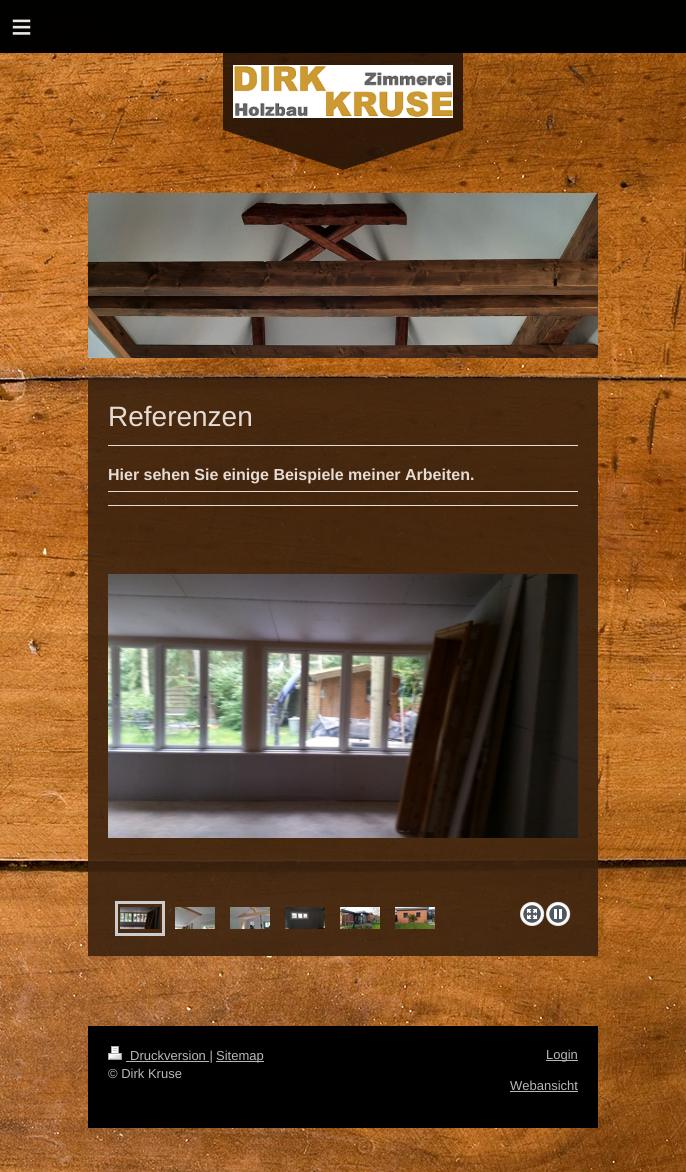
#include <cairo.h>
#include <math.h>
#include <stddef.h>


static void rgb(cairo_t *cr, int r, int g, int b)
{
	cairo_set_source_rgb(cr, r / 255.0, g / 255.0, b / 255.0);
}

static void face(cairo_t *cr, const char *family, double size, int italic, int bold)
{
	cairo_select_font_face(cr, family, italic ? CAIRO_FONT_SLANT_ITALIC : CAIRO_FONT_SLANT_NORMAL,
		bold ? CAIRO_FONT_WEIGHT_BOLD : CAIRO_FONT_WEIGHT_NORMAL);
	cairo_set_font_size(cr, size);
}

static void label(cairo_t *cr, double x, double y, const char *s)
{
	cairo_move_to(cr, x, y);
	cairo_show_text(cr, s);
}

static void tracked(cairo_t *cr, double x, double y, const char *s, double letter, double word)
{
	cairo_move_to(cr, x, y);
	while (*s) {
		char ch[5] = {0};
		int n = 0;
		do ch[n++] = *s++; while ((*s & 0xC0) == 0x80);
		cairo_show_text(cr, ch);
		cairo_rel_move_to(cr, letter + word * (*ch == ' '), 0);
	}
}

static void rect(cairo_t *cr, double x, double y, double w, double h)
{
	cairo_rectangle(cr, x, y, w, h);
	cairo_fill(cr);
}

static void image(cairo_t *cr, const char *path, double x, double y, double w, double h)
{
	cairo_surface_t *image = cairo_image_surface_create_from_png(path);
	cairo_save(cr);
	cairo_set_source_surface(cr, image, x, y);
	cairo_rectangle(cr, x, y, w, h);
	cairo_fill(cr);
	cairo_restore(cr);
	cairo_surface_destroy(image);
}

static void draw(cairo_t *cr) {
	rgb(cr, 255, 255, 255);
	cairo_paint(cr);
	image(cr, "image0.png", 0, 0, 686, 1172);
	cairo_set_source_rgba(cr, 0, 0, 0, 0.99);
	rect(cr, 0, 0, 686, 53);
	face(cr, "Liberation Sans", 36, 0, 0);
	rgb(cr, 234, 231, 229);
	tracked(cr, 11, 39, "≡", 10, 0);
	cairo_set_source_rgba(cr, 0.153, 0.082, 0.031, 0.9);
	rect(cr, 223, 53, 240, 77);
	image(cr, "image1.png", 233, 65, 220, 53);
	cairo_new_path(cr);
	cairo_move_to(cr, 223, 130);
	cairo_line_to(cr, 463, 130);
	cairo_line_to(cr, 343, 170);
	cairo_close_path(cr);
	cairo_fill(cr);
	image(cr, "image2.png", 88, 193, 510, 165);
	cairo_set_source_rgba(cr, 0.235, 0.137, 0.059, 0.9);
	rect(cr, 88, 378, 510, 578);
	rgb(cr, 231, 220, 212);
	rect(cr, 108, 445, 470, 1);
	face(cr, "Liberation Sans", 28, 0, 0);
	label(cr, 108, 426, "Referenzen");
	rect(cr, 108, 491, 470, 1);
	face(cr, "Liberation Sans", 16, 0, 1);
	label(cr, 108, 480, "Hier sehen Sie einige Beispiele meiner Arbeiten.");
	rect(cr, 108, 505, 470, 1);
	image(cr, "image3.png", 108, 574, 470, 264);
	cairo_rectangle(cr, 116.5, 902.5, 47, 32);
	rgb(cr, 204, 204, 204);
	cairo_set_line_width(cr, 3);
	cairo_stroke(cr);
	image(cr, "image4.png", 120, 907, 40, 22);
	image(cr, "image5.png", 175, 907, 40, 22);
	image(cr, "image6.png", 230, 907, 40, 22);
	image(cr, "image7.png", 285, 907, 40, 22);
	image(cr, "image8.png", 340, 907, 40, 22);
	image(cr, "image9.png", 395, 907, 40, 22);
	image(cr, "image10.png", 520, 901, 25, 25);
	image(cr, "image11.png", 546, 901, 25, 25);
	rgb(cr, 0, 0, 0);
	rect(cr, 88, 1026, 510, 102);
	image(cr, "image12.png", 108, 1046, 14, 14);
	rgb(cr, 184, 184, 184);
	rect(cr, 126, 1061, 83, 1);
	face(cr, "Liberation Sans", 13, 0, 0);
	label(cr, 130, 1060, "Druckversion |");
	rect(cr, 216, 1061, 48, 1);
	label(cr, 216, 1060, "Sitemap");
	label(cr, 108, 1078, "© Dirk Kruse");
	rect(cr, 546, 1060, 32, 1);
	label(cr, 546, 1059, "Login");
	label(cr, 510, 1090, "Webansicht");
	rect(cr, 510, 1091, 68, 1);
}

int main(void) {
	cairo_surface_t *surface = cairo_image_surface_create(CAIRO_FORMAT_RGB24, 686, 1172);
	cairo_t *cr = cairo_create(surface);
	cairo_font_options_t *options = cairo_font_options_create();
	cairo_font_options_set_hint_metrics(options, CAIRO_HINT_METRICS_OFF);
	cairo_font_options_set_hint_style(options, CAIRO_HINT_STYLE_NONE);
	cairo_set_font_options(cr, options);
	cairo_set_miter_limit(cr, 4);
	draw(cr);
	cairo_surface_write_to_png(surface, "render.png");
	cairo_font_options_destroy(options);
	cairo_destroy(cr);
	cairo_surface_destroy(surface);
	return 0;
}
